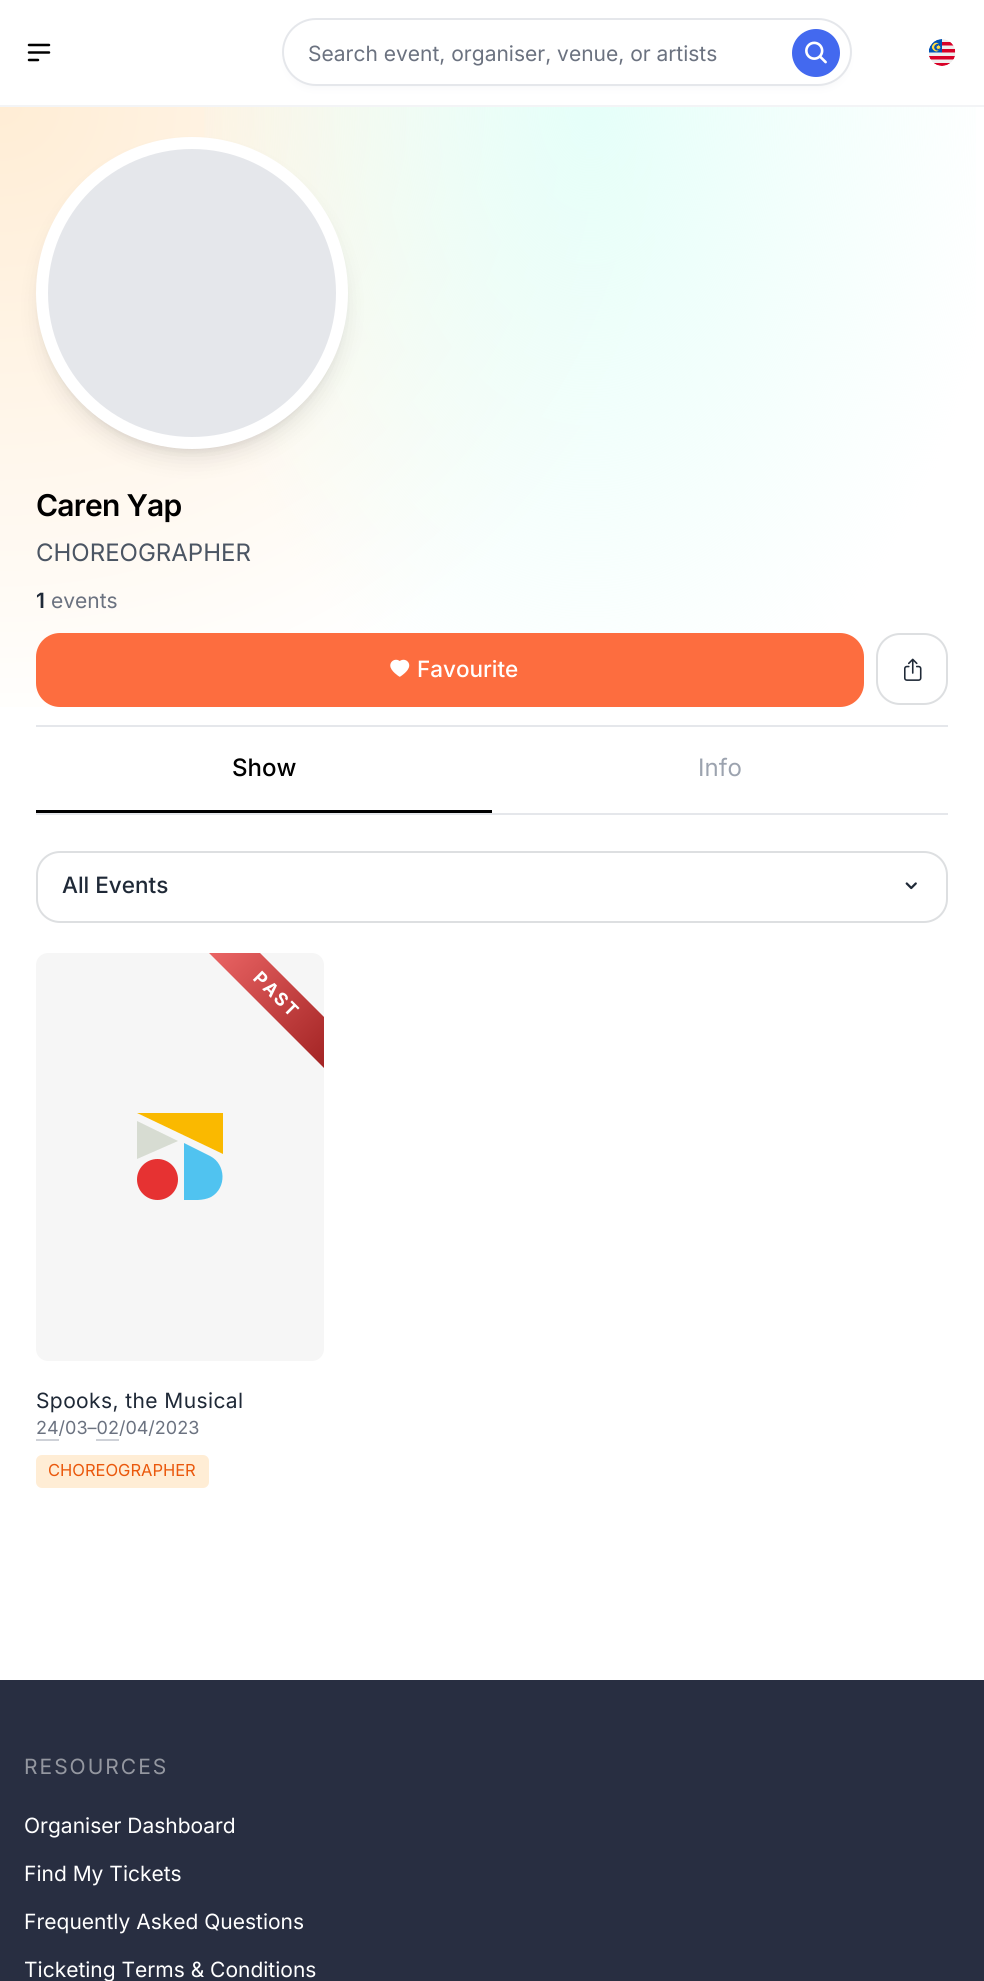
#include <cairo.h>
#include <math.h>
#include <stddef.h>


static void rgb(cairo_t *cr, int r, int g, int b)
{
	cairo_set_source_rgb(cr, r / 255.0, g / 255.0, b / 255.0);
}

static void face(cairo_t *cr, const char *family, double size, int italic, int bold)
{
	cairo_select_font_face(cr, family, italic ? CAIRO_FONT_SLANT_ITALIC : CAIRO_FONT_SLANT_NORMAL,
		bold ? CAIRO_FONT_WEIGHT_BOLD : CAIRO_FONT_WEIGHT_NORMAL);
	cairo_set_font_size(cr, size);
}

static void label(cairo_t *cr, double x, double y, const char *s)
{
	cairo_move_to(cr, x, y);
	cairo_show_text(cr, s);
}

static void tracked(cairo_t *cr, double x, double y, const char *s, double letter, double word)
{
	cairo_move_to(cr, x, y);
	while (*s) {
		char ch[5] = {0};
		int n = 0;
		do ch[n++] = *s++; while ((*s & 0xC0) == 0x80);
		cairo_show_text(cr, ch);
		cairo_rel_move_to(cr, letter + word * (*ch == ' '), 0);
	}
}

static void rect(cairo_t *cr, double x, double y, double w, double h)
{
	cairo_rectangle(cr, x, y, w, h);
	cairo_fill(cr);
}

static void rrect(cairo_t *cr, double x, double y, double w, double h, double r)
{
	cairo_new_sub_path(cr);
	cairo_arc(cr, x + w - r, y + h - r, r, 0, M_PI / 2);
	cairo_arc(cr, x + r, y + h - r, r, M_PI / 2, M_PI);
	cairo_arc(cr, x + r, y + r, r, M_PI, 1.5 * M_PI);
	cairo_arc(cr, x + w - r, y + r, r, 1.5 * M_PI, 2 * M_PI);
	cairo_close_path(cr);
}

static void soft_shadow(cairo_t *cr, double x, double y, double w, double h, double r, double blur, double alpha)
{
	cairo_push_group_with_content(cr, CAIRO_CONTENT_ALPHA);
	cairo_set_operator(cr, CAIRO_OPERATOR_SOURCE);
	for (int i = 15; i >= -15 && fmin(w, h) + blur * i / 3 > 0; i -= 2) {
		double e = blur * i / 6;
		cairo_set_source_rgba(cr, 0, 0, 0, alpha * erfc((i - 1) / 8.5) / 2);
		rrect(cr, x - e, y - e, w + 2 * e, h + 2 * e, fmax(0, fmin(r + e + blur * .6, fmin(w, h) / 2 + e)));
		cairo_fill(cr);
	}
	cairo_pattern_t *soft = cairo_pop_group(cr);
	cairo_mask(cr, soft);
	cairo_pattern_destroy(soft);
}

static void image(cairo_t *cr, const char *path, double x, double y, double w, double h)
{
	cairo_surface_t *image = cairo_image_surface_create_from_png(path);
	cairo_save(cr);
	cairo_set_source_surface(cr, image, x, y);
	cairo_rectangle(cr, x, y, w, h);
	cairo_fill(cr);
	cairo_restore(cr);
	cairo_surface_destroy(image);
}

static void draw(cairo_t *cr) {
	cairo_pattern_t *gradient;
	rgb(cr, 255, 255, 255);
	cairo_paint(cr);
	rgb(cr, 243, 244, 246);
	rect(cr, 0, 105, 984, 2);
	cairo_new_path(cr);
	cairo_move_to(cr, 29, 45);
	cairo_line_to(cr, 49, 45);
	cairo_move_to(cr, 29, 52.5);
	cairo_line_to(cr, 49, 52.5);
	cairo_move_to(cr, 29, 60);
	cairo_line_to(cr, 38, 60);
	rgb(cr, 0, 0, 0);
	cairo_set_line_width(cr, 2.5);
	cairo_set_line_cap(cr, CAIRO_LINE_CAP_ROUND);
	cairo_set_line_join(cr, CAIRO_LINE_JOIN_ROUND);
	cairo_stroke(cr);
	rgb(cr, 243, 244, 246);
	soft_shadow(cr, 288, 30, 558, 56, 28, 4.5, 1);
	rgb(cr, 255, 255, 255);
	rrect(cr, 283, 19, 568, 66, 33);
	cairo_fill_preserve(cr);
	rgb(cr, 229, 231, 235);
	cairo_set_line_width(cr, 2);
	cairo_set_line_cap(cr, CAIRO_LINE_CAP_BUTT);
	cairo_set_line_join(cr, CAIRO_LINE_JOIN_MITER);
	cairo_stroke(cr);
	face(cr, "Inter", 21, 0, 0);
	rgb(cr, 107, 114, 128);
	label(cr, 308, 61, "Search event, organiser, venue, or artists");
	rgb(cr, 67, 105, 239);
	cairo_new_path(cr);
	cairo_arc(cr, 816, 53, 24, 0, 2 * M_PI);
	cairo_fill(cr);
	image(cr, "image0.png", 805, 41, 22, 23);
	image(cr, "image1.png", 929, 39, 27, 27);
	gradient = cairo_pattern_create_radial(0, 0, 0, 0, 0, 1);
	cairo_pattern_set_matrix(gradient, &(cairo_matrix_t){1.0 / 1392, 0, 0, 1.0 / 1273, -1.0 * 0 / 1392, -1.0 * 107 / 1273});
	cairo_pattern_add_color_stop_rgba(gradient, 0, 1, 0.929, 0.835, 1);
	cairo_pattern_add_color_stop_rgba(gradient, 0.5, 1, 1, 1, 1);
	cairo_set_source(cr, gradient);
	cairo_pattern_destroy(gradient);
	rect(cr, 0, 107, 655, 600);
	gradient = cairo_pattern_create_radial(0, 0, 0, 0, 0, 1);
	cairo_pattern_set_matrix(gradient, &(cairo_matrix_t){1.0 / 835, 0, 0, 1.0 / 1273, -1.0 * 590 / 835, -1.0 * 107 / 1273});
	cairo_pattern_add_color_stop_rgba(gradient, 0, 0.898, 1, 0.976, 1);
	cairo_pattern_add_color_stop_rgba(gradient, 0.5, 0.898, 1, 0.976, 0);
	cairo_set_source(cr, gradient);
	cairo_pattern_destroy(gradient);
	rect(cr, 204, 107, 772, 588);
	rgb(cr, 0, 0, 0);
	soft_shadow(cr, 42, 149, 300, 300, 150, 4.5, 0.1);
	soft_shadow(cr, 41, 156, 303, 303, 151.5, 11, 0.1);
	rgb(cr, 229, 231, 235);
	cairo_arc(cr, 192, 293, 150, 0, 2 * M_PI);
	cairo_fill_preserve(cr);
	rgb(cr, 255, 255, 255);
	cairo_set_line_width(cr, 12);
	cairo_stroke(cr);
	face(cr, "Inter SemiBold", 30, 0, 0);
	rgb(cr, 0, 0, 0);
	tracked(cr, 36, 516, "Caren Yap", -0.75, 0);
	face(cr, "Inter", 24, 0, 0);
	rgb(cr, 75, 85, 99);
	label(cr, 36, 561, "CHOREOGRAPHER");
	face(cr, "Inter SemiBold", 21, 0, 0);
	rgb(cr, 31, 41, 55);
	label(cr, 36, 608, "1");
	face(cr, "Inter", 21, 0, 0);
	rgb(cr, 107, 114, 128);
	label(cr, 51, 608, "events");
	rgb(cr, 253, 109, 63);
	rrect(cr, 36, 633, 828, 74, 24);
	cairo_fill(cr);
	image(cr, "image2.png", 390, 659, 20, 18);
	face(cr, "Inter Medium", 22.5, 0, 0);
	rgb(cr, 255, 255, 255);
	label(cr, 417, 677, "Favourite");
	rrect(cr, 877, 634, 70, 70, 23);
	rgb(cr, 221, 223, 225);
	cairo_set_line_width(cr, 2);
	cairo_stroke(cr);
	image(cr, "image3.png", 904, 658, 18, 23);
	rgb(cr, 229, 231, 235);
	rect(cr, 36, 725, 912, 2);
	rect(cr, 36, 813, 912, 2);
	rgb(cr, 0, 0, 0);
	rect(cr, 36, 810, 456, 3);
	face(cr, "Inter Medium", 24, 0, 0);
	label(cr, 232, 776, "Show");
	face(cr, "Inter", 24, 0, 0);
	rgb(cr, 156, 163, 175);
	label(cr, 698, 776, "Info");
	rrect(cr, 37, 852, 910, 70, 23);
	rgb(cr, 221, 223, 225);
	cairo_stroke(cr);
	face(cr, "Inter Medium", 22.5, 0, 0);
	rgb(cr, 31, 41, 55);
	label(cr, 62, 893, "All Events");
	image(cr, "image4.png", 905, 882, 12, 8);
	rgb(cr, 246, 246, 246);
	rrect(cr, 36, 953, 288, 408, 12);
	cairo_fill(cr);
	rgb(cr, 250, 185, 0);
	cairo_new_path(cr);
	cairo_move_to(cr, 137, 1113);
	cairo_line_to(cr, 223, 1154);
	cairo_line_to(cr, 223, 1113);
	cairo_close_path(cr);
	cairo_fill(cr);
	rgb(cr, 215, 220, 210);
	cairo_new_path(cr);
	cairo_move_to(cr, 137, 1121);
	cairo_line_to(cr, 137, 1159);
	cairo_line_to(cr, 178, 1141);
	cairo_close_path(cr);
	cairo_fill(cr);
	rgb(cr, 230, 50, 50);
	cairo_arc(cr, 157.5, 1179.5, 20.5, 0, 2 * M_PI);
	cairo_fill(cr);
	cairo_save(cr);
	cairo_rectangle(cr, 137, 1113, 87, 87);
	cairo_clip(cr);
	rgb(cr, 80, 195, 240);
	cairo_new_path(cr);
	cairo_move_to(cr, 210, 1156);
	cairo_line_to(cr, 184, 1143);
	cairo_line_to(cr, 184, 1200);
	cairo_curve_to(cr, 193, 1200, 203, 1201, 211, 1197);
	cairo_curve_to(cr, 227, 1188, 226, 1164, 210, 1156);
	cairo_close_path(cr);
	cairo_fill(cr);
	cairo_restore(cr);
	gradient = cairo_pattern_create_linear(200, 918, 352, 1071);
	cairo_pattern_add_color_stop_rgba(gradient, 0, 0.973, 0.443, 0.443, 1);
	cairo_pattern_add_color_stop_rgba(gradient, 1, 0.6, 0.106, 0.106, 1);
	cairo_set_source(cr, gradient);
	cairo_pattern_destroy(gradient);
	cairo_new_path(cr);
	cairo_move_to(cr, 324, 1068);
	cairo_line_to(cr, 209, 953);
	cairo_line_to(cr, 260, 953);
	cairo_line_to(cr, 324, 1017);
	cairo_close_path(cr);
	cairo_fill(cr);
	face(cr, "Inter", 18, 0, 1);
	rgb(cr, 255, 255, 255);
	cairo_save(cr);
	cairo_translate(cr, 252, 979);
	cairo_rotate(cr, 45 * M_PI / 180);
	tracked(cr, 0, 0, "PAST", 2, 0);
	cairo_restore(cr);
	face(cr, "Inter", 21, 0, 0);
	rgb(cr, 31, 41, 55);
	tracked(cr, 36, 1408, "Spooks, the Musical", 0.4, 0);
	face(cr, "Inter", 18, 0, 0);
	rgb(cr, 107, 114, 128);
	label(cr, 36, 1434, "24/03–02/04/2023");
	rgb(cr, 206, 209, 215);
	rect(cr, 36, 1439, 23, 2);
	rect(cr, 96, 1439, 23, 2);
	rgb(cr, 255, 237, 213);
	rrect(cr, 36, 1455, 173, 33, 6);
	cairo_fill(cr);
	face(cr, "Inter", 16.5, 0, 0);
	rgb(cr, 234, 88, 12);
	label(cr, 48, 1476, "CHOREOGRAPHER");
	rgb(cr, 40, 46, 65);
	rect(cr, 0, 1680, 984, 301);
	face(cr, "Inter", 21, 0, 0);
	rgb(cr, 148, 151, 160);
	tracked(cr, 24, 1774, "RESOURCES", 2, 0);
	rgb(cr, 255, 255, 255);
	label(cr, 24, 1833, "Organiser Dashboard");
	label(cr, 24, 1881, "Find My Tickets");
	label(cr, 24, 1929, "Frequently Asked Questions");
	label(cr, 24, 1977, "Ticketing Terms & Conditions");
}

int main(void) {
	cairo_surface_t *surface = cairo_image_surface_create(CAIRO_FORMAT_RGB24, 984, 1981);
	cairo_t *cr = cairo_create(surface);
	cairo_font_options_t *options = cairo_font_options_create();
	cairo_font_options_set_hint_metrics(options, CAIRO_HINT_METRICS_OFF);
	cairo_font_options_set_hint_style(options, CAIRO_HINT_STYLE_NONE);
	cairo_set_font_options(cr, options);
	cairo_set_miter_limit(cr, 4);
	draw(cr);
	cairo_surface_write_to_png(surface, "render.png");
	cairo_font_options_destroy(options);
	cairo_destroy(cr);
	cairo_surface_destroy(surface);
	return 0;
}
